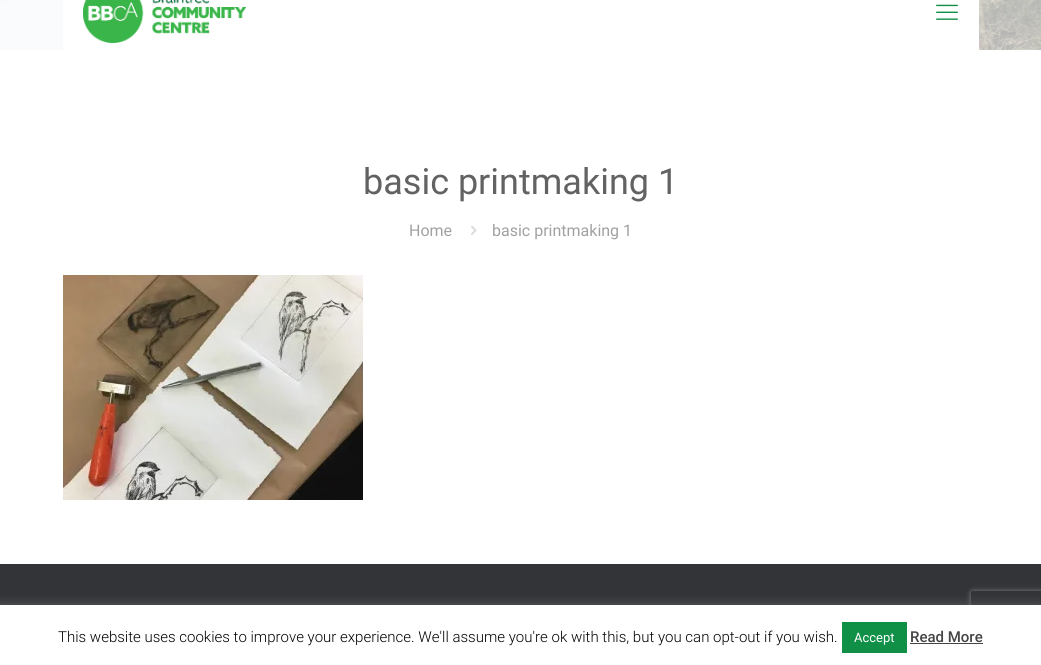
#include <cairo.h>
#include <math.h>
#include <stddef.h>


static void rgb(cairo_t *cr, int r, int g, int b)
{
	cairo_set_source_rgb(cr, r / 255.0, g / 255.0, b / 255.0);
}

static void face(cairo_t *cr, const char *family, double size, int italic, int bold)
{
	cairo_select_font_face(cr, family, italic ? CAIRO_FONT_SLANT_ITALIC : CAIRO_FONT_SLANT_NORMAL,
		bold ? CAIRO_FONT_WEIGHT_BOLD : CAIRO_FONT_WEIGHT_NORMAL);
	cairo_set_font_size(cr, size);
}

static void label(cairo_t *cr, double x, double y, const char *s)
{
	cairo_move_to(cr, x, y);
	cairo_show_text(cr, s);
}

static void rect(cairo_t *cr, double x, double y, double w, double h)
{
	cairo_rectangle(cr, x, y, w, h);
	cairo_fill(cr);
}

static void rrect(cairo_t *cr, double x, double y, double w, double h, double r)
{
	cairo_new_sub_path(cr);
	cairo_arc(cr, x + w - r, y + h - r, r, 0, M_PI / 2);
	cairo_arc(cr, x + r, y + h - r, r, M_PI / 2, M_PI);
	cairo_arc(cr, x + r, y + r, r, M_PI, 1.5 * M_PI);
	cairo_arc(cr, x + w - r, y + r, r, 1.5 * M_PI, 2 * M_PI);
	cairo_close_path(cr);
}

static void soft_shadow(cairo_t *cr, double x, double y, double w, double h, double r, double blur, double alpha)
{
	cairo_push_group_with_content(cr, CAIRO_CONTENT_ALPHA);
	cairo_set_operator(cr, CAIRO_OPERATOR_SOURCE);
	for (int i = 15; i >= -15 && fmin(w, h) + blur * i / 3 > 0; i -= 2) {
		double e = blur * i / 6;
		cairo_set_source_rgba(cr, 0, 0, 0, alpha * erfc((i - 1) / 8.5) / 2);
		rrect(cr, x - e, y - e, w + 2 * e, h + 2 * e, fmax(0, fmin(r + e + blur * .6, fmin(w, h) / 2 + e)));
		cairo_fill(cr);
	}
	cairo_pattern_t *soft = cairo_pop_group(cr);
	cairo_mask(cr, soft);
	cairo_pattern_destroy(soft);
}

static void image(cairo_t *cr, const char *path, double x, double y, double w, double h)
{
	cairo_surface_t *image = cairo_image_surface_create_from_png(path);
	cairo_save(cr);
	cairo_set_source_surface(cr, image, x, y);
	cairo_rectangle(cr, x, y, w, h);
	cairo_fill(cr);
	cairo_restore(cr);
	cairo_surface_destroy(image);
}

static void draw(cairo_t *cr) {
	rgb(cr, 255, 255, 255);
	cairo_paint(cr);
	image(cr, "image0.png", 0, 0, 1041, 50);
	rgb(cr, 255, 255, 255);
	rect(cr, 63, 0, 916, 50);
	image(cr, "image1.png", 83, 0, 163, 43);
	image(cr, "image2.png", 936, 4, 22, 16);
	face(cr, "Roboto", 36, 0, 0);
	rgb(cr, 98, 98, 98);
	label(cr, 363, 194, "basic printmaking 1");
	face(cr, "Roboto", 16, 0, 0);
	rgb(cr, 161, 161, 161);
	label(cr, 409, 236, "Home");
	image(cr, "image3.png", 471, 225, 6, 10);
	label(cr, 492, 236, "basic printmaking 1");
	image(cr, "image4.png", 63, 275, 300, 225);
	rgb(cr, 50, 52, 55);
	rect(cr, 0, 564, 1041, 41);
	rgb(cr, 172, 171, 171);
	soft_shadow(cr, 0, 604, 1041, 60, 0, 5, 0.3);
	cairo_save(cr);
	cairo_set_fill_rule(cr, CAIRO_FILL_RULE_EVEN_ODD);
	cairo_new_path(cr);
	cairo_move_to(cr, 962, 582);
	cairo_line_to(cr, 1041, 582);
	cairo_line_to(cr, 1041, 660);
	cairo_line_to(cr, 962, 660);
	cairo_close_path(cr);
	cairo_move_to(cr, 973, 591);
	cairo_line_to(cr, 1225, 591);
	cairo_curve_to(cr, 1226, 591, 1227, 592, 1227, 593);
	cairo_line_to(cr, 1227, 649);
	cairo_curve_to(cr, 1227, 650, 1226, 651, 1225, 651);
	cairo_line_to(cr, 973, 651);
	cairo_curve_to(cr, 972, 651, 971, 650, 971, 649);
	cairo_line_to(cr, 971, 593);
	cairo_curve_to(cr, 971, 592, 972, 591, 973, 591);
	cairo_close_path(cr);
	cairo_clip(cr);
	rgb(cr, 128, 128, 128);
	soft_shadow(cr, 971, 591, 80, 60, 2, 2.5, 1);
	cairo_restore(cr);
	rgb(cr, 255, 255, 255);
	rect(cr, 0, 605, 1041, 60);
	face(cr, "Roboto Light", 15, 0, 0);
	rgb(cr, 0, 0, 0);
	label(cr, 58, 642, "This website uses cookies to improve your experience. We'll assume you're ok with this, but you can opt-out if you wish.");
	rgb(cr, 16, 143, 71);
	rect(cr, 842, 622, 65, 31);
	face(cr, "Roboto", 13, 0, 0);
	rgb(cr, 255, 255, 255);
	label(cr, 854, 642, "Accept");
	face(cr, "Roboto Medium", 15, 0, 0);
	rgb(cr, 68, 68, 68);
	label(cr, 910, 642, "Read More");
	rect(cr, 910, 643, 73, 1);
}

int main(void) {
	cairo_surface_t *surface = cairo_image_surface_create(CAIRO_FORMAT_RGB24, 1041, 665);
	cairo_t *cr = cairo_create(surface);
	cairo_font_options_t *options = cairo_font_options_create();
	cairo_font_options_set_hint_metrics(options, CAIRO_HINT_METRICS_OFF);
	cairo_font_options_set_hint_style(options, CAIRO_HINT_STYLE_NONE);
	cairo_set_font_options(cr, options);
	cairo_set_miter_limit(cr, 4);
	draw(cr);
	cairo_surface_write_to_png(surface, "render.png");
	cairo_font_options_destroy(options);
	cairo_destroy(cr);
	cairo_surface_destroy(surface);
	return 0;
}
